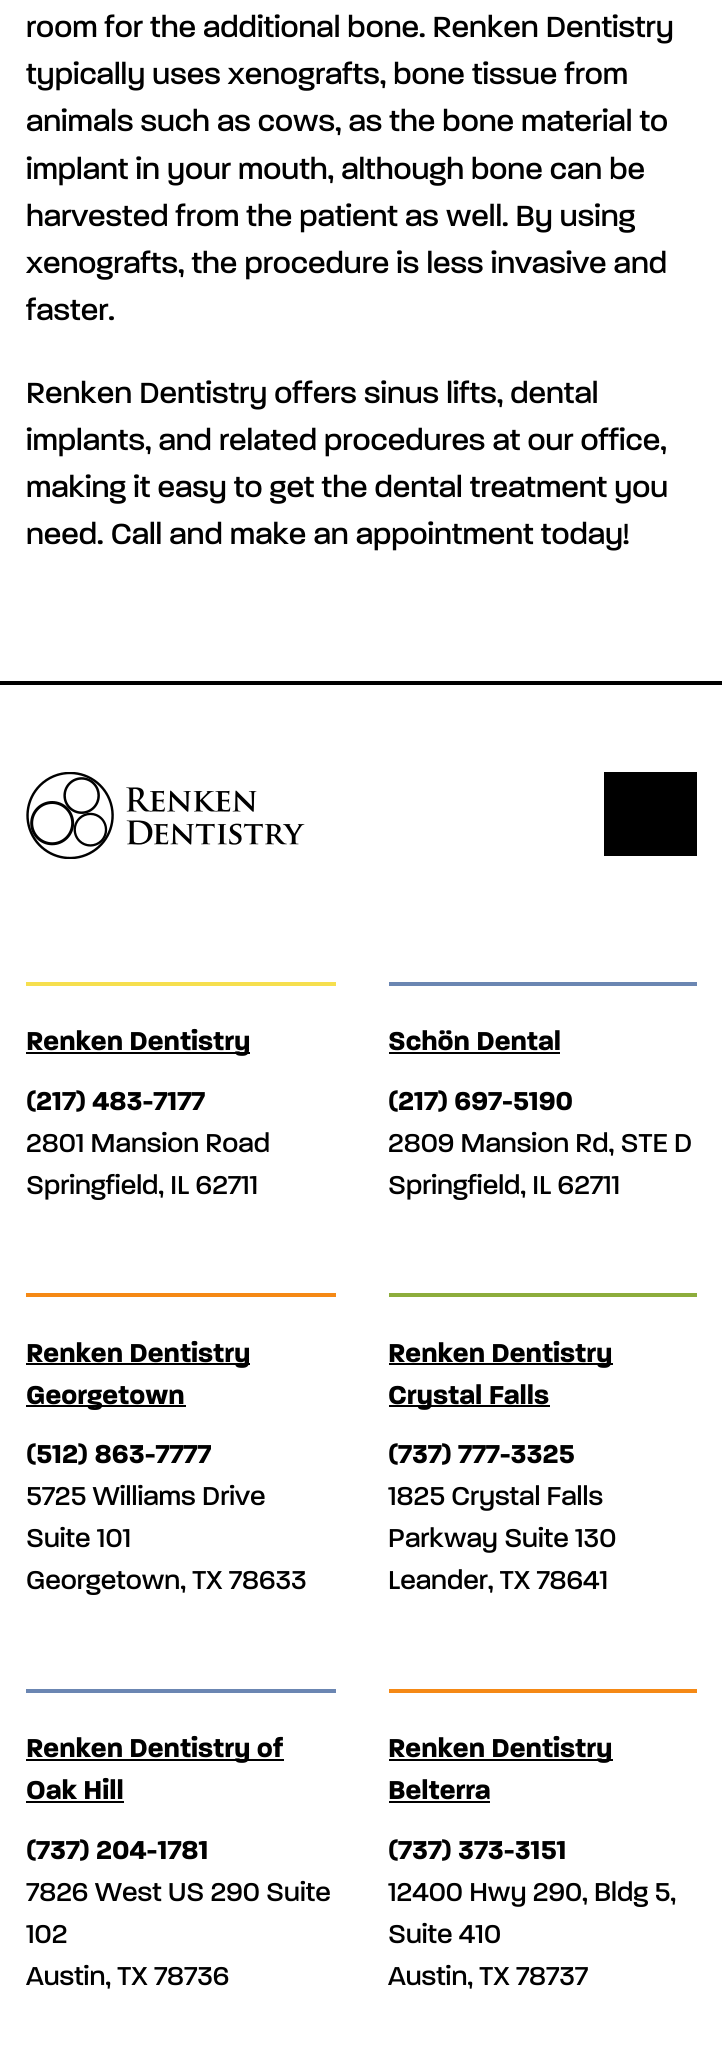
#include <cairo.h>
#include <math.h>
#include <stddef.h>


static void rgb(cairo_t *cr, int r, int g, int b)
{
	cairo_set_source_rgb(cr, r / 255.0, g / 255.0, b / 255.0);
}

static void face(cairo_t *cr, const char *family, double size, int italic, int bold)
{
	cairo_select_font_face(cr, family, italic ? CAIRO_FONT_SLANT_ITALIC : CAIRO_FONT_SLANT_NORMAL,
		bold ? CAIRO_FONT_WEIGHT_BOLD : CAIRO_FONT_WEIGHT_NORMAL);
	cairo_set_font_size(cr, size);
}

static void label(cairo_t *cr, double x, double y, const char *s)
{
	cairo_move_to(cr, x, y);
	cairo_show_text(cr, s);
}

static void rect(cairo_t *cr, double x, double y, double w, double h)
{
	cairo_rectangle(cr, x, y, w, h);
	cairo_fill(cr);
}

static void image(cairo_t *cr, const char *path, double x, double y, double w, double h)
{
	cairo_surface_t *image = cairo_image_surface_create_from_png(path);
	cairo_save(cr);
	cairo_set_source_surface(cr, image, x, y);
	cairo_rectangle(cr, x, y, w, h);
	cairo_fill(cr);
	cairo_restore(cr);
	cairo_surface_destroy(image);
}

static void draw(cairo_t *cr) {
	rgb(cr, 255, 255, 255);
	cairo_paint(cr);
	face(cr, "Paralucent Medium", 31.5, 0, 0);
	rgb(cr, 0, 0, 0);
	label(cr, 26, 37, "room for the additional bone. Renken Dentistry");
	label(cr, 26, 84, "typically uses xenografts, bone tissue from");
	label(cr, 26, 131, "animals such as cows, as the bone material to");
	label(cr, 26, 179, "implant in your mouth, although bone can be");
	label(cr, 26, 226, "harvested from the patient as well. By using");
	label(cr, 26, 273, "xenografts, the procedure is less invasive and");
	label(cr, 26, 320, "faster.");
	label(cr, 26, 403, "Renken Dentistry offers sinus lifts, dental");
	label(cr, 26, 450, "implants, and related procedures at our office,");
	label(cr, 26, 497, "making it easy to get the dental treatment you");
	label(cr, 26, 544, "need. Call and make an appointment today!");
	rect(cr, 0, 681, 722, 4);
	image(cr, "image0.png", 26, 772, 279, 87);
	rect(cr, 604, 772, 93, 84);
	rgb(cr, 246, 223, 78);
	rect(cr, 26, 982, 310, 4);
	rgb(cr, 0, 0, 0);
	rect(cr, 26, 1052, 224, 2);
	face(cr, "Paralucent", 28, 0, 1);
	label(cr, 26, 1050, "Renken Dentistry");
	label(cr, 26, 1110, "(217) 483-7177");
	face(cr, "Paralucent Medium", 28, 0, 0);
	label(cr, 26, 1152, "2801 Mansion Road");
	label(cr, 26, 1194, "Springfield, IL 62711");
	rgb(cr, 107, 134, 178);
	rect(cr, 389, 982, 308, 4);
	face(cr, "Paralucent", 28, 0, 1);
	rgb(cr, 0, 0, 0);
	label(cr, 388, 1050, "Schön Dental");
	rect(cr, 389, 1052, 171, 2);
	label(cr, 388, 1110, "(217) 697-5190");
	face(cr, "Paralucent Medium", 28, 0, 0);
	label(cr, 388, 1152, "2809 Mansion Rd, STE D");
	label(cr, 388, 1194, "Springfield, IL 62711");
	rgb(cr, 245, 137, 21);
	rect(cr, 26, 1293, 310, 4);
	rgb(cr, 0, 0, 0);
	rect(cr, 26, 1363, 224, 2);
	face(cr, "Paralucent", 28, 0, 1);
	label(cr, 26, 1362, "Renken Dentistry");
	rect(cr, 26, 1405, 160, 2);
	label(cr, 26, 1404, "Georgetown");
	label(cr, 26, 1463, "(512) 863-7777");
	face(cr, "Paralucent Medium", 28, 0, 0);
	label(cr, 26, 1505, "5725 Williams Drive");
	label(cr, 26, 1547, "Suite 101");
	label(cr, 26, 1589, "Georgetown, TX 78633");
	rgb(cr, 141, 173, 60);
	rect(cr, 389, 1293, 308, 4);
	rgb(cr, 0, 0, 0);
	rect(cr, 389, 1363, 224, 2);
	face(cr, "Paralucent", 28, 0, 1);
	label(cr, 388, 1362, "Renken Dentistry");
	rect(cr, 389, 1405, 161, 2);
	label(cr, 388, 1404, "Crystal Falls");
	label(cr, 388, 1463, "(737) 777-3325");
	face(cr, "Paralucent Medium", 28, 0, 0);
	label(cr, 388, 1505, "1825 Crystal Falls");
	label(cr, 388, 1547, "Parkway Suite 130");
	label(cr, 388, 1589, "Leander, TX 78641");
	rgb(cr, 107, 134, 178);
	rect(cr, 26, 1689, 310, 4);
	rgb(cr, 0, 0, 0);
	rect(cr, 26, 1759, 258, 2);
	face(cr, "Paralucent", 28, 0, 1);
	label(cr, 26, 1757, "Renken Dentistry of");
	label(cr, 26, 1799, "Oak Hill");
	rect(cr, 26, 1801, 98, 2);
	label(cr, 26, 1859, "(737) 204-1781");
	face(cr, "Paralucent Medium", 28, 0, 0);
	label(cr, 26, 1901, "7826 West US 290 Suite");
	label(cr, 26, 1943, "102");
	label(cr, 26, 1985, "Austin, TX 78736");
	rgb(cr, 245, 137, 21);
	rect(cr, 389, 1689, 308, 4);
	rgb(cr, 0, 0, 0);
	rect(cr, 389, 1759, 224, 2);
	face(cr, "Paralucent", 28, 0, 1);
	label(cr, 388, 1757, "Renken Dentistry");
	label(cr, 388, 1799, "Belterra");
	rect(cr, 389, 1801, 101, 2);
	label(cr, 388, 1859, "(737) 373-3151");
	face(cr, "Paralucent Medium", 28, 0, 0);
	label(cr, 388, 1901, "12400 Hwy 290, Bldg 5,");
	label(cr, 388, 1943, "Suite 410");
	label(cr, 388, 1985, "Austin, TX 78737");
}

int main(void) {
	cairo_surface_t *surface = cairo_image_surface_create(CAIRO_FORMAT_RGB24, 722, 2057);
	cairo_t *cr = cairo_create(surface);
	cairo_font_options_t *options = cairo_font_options_create();
	cairo_font_options_set_hint_metrics(options, CAIRO_HINT_METRICS_OFF);
	cairo_font_options_set_hint_style(options, CAIRO_HINT_STYLE_NONE);
	cairo_set_font_options(cr, options);
	cairo_set_miter_limit(cr, 4);
	draw(cr);
	cairo_surface_write_to_png(surface, "render.png");
	cairo_font_options_destroy(options);
	cairo_destroy(cr);
	cairo_surface_destroy(surface);
	return 0;
}
